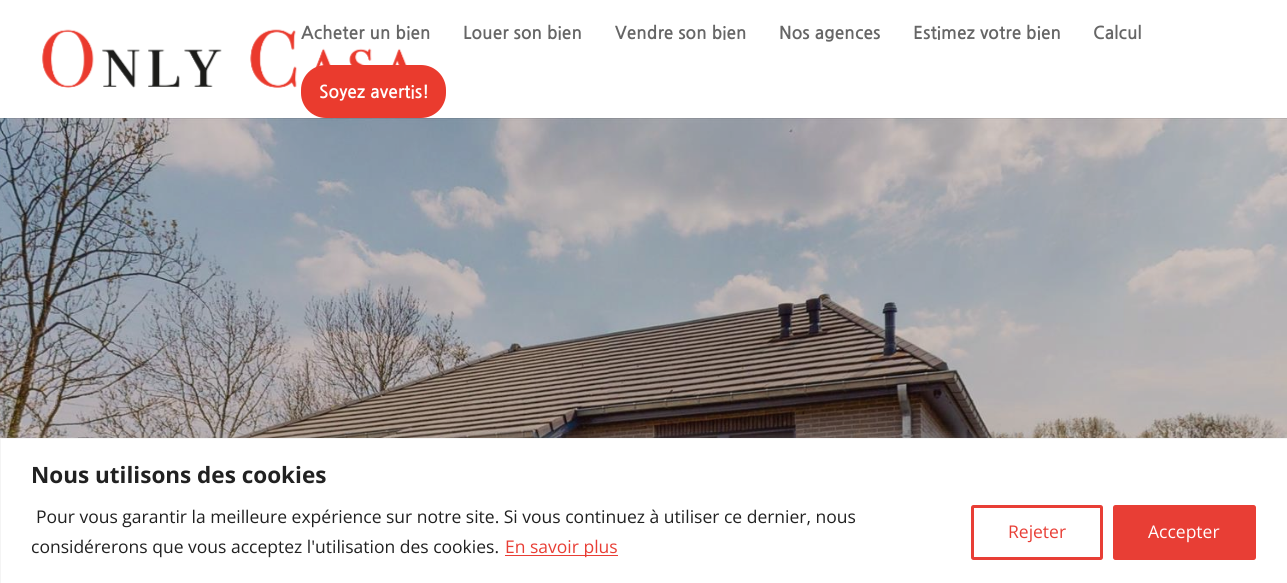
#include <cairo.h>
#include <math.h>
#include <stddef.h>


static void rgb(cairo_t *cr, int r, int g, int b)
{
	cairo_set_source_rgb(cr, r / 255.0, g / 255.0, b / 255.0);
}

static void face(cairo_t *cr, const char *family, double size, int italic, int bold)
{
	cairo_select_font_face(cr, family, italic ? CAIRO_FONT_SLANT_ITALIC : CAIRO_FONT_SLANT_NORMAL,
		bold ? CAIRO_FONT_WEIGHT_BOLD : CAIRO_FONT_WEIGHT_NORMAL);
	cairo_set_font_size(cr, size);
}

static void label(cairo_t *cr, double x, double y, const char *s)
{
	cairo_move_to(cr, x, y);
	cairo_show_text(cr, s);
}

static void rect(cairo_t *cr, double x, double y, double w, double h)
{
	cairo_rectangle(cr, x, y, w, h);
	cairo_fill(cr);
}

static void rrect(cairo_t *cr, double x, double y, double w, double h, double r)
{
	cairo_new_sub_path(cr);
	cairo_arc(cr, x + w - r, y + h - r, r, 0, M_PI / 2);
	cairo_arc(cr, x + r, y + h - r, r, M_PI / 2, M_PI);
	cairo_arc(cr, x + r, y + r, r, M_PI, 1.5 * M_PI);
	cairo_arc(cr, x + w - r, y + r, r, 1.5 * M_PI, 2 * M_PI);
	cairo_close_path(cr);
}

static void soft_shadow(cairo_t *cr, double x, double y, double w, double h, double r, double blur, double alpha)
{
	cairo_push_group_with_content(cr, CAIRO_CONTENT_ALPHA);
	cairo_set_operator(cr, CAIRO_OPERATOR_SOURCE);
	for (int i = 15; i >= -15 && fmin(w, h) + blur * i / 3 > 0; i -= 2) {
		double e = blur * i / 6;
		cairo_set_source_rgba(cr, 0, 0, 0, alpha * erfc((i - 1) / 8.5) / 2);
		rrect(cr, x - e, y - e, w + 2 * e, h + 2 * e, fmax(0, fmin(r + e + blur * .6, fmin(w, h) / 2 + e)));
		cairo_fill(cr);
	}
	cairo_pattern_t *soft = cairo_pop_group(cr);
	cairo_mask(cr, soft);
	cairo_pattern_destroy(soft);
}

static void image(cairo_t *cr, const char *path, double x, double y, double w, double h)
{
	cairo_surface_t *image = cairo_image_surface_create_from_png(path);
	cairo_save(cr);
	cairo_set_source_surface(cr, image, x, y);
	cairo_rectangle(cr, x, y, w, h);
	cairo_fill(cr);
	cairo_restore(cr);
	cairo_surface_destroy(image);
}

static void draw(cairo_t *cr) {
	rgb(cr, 255, 255, 255);
	cairo_paint(cr);
	image(cr, "image1.png", 0, 118, 1287, 320);
	cairo_set_source_rgba(cr, 0, 0, 0, 0.1);
	cairo_new_path(cr);
	cairo_move_to(cr, 0, 118);
	cairo_line_to(cr, 0, 119);
	cairo_line_to(cr, 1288, 119);
	cairo_line_to(cr, 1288, 1);
	cairo_line_to(cr, 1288, 118);
	cairo_close_path(cr);
	cairo_fill(cr);
	image(cr, "image0.png", 42, 29, 365, 59);
	face(cr, "NanumGothic", 17.5, 0, 1);
	rgb(cr, 102, 102, 102);
	label(cr, 301, 39, "Acheter un bien");
	label(cr, 463, 39, "Louer son bien");
	label(cr, 615, 39, "Vendre son bien");
	label(cr, 779, 39, "Nos agences");
	label(cr, 913, 39, "Estimez votre bien");
	label(cr, 1093, 39, "Calcul");
	rgb(cr, 234, 59, 46);
	rrect(cr, 301, 65, 145, 53, 25);
	cairo_fill(cr);
	rgb(cr, 255, 255, 255);
	label(cr, 319, 98, "Soyez avertis!");
	rgb(cr, 172, 171, 171);
	soft_shadow(cr, 0, 436, 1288, 147, 0, 6, 0.3);
	rgb(cr, 255, 255, 255);
	cairo_rectangle(cr, 0.5, 438.5, 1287, 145);
	cairo_fill_preserve(cr);
	rgb(cr, 244, 244, 244);
	cairo_set_line_width(cr, 1);
	cairo_stroke(cr);
	face(cr, "Open Sans", 22.5, 0, 1);
	rgb(cr, 33, 33, 33);
	label(cr, 31, 483, "Nous utilisons des cookies");
	face(cr, "Open Sans", 17.5, 0, 0);
	label(cr, 36, 523, "Pour vous garantir la meilleure expérience sur notre site. Si vous continuez à utiliser ce dernier, nous");
	label(cr, 31, 553, "considérerons que vous acceptez l'utilisation des cookies.");
	rgb(cr, 232, 62, 53);
	rect(cr, 505, 555, 113, 1);
	label(cr, 505, 553, "En savoir plus");
	rrect(cr, 972.5, 506.5, 129, 52, 1);
	cairo_set_line_width(cr, 3);
	cairo_stroke(cr);
	label(cr, 1008, 538, "Rejeter");
	rrect(cr, 1114.5, 506.5, 140, 52, 1);
	cairo_fill_preserve(cr);
	cairo_stroke(cr);
	rgb(cr, 255, 255, 255);
	label(cr, 1148, 538, "Accepter");
}

int main(void) {
	cairo_surface_t *surface = cairo_image_surface_create(CAIRO_FORMAT_RGB24, 1287, 583);
	cairo_t *cr = cairo_create(surface);
	cairo_font_options_t *options = cairo_font_options_create();
	cairo_font_options_set_hint_metrics(options, CAIRO_HINT_METRICS_OFF);
	cairo_font_options_set_hint_style(options, CAIRO_HINT_STYLE_NONE);
	cairo_set_font_options(cr, options);
	cairo_set_miter_limit(cr, 4);
	draw(cr);
	cairo_surface_write_to_png(surface, "render.png");
	cairo_font_options_destroy(options);
	cairo_destroy(cr);
	cairo_surface_destroy(surface);
	return 0;
}
